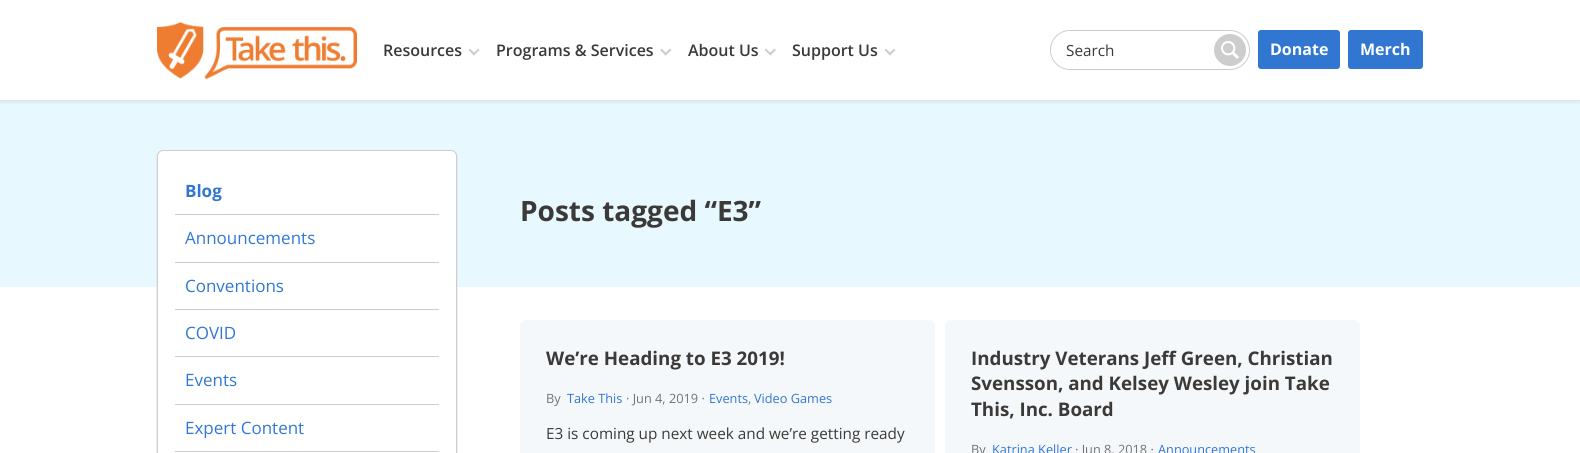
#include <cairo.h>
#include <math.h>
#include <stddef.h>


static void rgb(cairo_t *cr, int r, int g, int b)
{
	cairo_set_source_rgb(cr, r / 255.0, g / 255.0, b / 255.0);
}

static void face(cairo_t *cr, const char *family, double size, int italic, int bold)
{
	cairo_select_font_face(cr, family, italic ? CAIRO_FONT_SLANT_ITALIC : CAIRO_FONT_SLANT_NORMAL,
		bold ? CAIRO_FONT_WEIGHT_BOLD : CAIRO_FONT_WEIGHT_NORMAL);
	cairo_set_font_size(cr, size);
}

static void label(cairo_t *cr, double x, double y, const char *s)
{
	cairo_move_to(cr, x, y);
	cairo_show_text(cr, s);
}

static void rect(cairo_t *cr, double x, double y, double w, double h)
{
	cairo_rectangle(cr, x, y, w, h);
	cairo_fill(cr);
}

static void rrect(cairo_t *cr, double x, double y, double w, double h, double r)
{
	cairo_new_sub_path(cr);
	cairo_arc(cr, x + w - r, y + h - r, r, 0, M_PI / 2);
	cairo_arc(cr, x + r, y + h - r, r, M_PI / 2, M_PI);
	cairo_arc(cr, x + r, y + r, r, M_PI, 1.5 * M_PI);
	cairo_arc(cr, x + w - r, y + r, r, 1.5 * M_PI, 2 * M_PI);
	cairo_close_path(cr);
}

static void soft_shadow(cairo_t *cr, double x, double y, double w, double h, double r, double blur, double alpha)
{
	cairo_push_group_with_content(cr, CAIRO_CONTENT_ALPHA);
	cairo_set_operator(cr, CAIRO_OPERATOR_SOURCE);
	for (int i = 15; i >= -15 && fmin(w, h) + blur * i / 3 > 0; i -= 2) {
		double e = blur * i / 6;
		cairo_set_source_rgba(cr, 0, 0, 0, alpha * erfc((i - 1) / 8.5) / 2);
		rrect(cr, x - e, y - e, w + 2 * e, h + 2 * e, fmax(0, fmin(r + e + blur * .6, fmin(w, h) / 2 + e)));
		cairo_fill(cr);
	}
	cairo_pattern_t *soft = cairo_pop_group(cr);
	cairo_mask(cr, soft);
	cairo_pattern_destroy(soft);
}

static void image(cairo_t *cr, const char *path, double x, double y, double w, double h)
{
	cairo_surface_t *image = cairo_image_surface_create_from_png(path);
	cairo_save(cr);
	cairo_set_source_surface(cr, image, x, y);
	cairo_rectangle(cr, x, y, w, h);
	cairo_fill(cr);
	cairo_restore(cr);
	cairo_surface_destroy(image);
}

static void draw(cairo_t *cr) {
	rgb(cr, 255, 255, 255);
	cairo_paint(cr);
	rgb(cr, 231, 248, 255);
	rect(cr, 0, 100, 1580, 187);
	cairo_save(cr);
	cairo_rectangle(cr, 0, 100, 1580, 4);
	cairo_clip(cr);
	rgb(cr, 77, 73, 72);
	soft_shadow(cr, 0, 2, 1580, 100, 0, 2, 0.12);
	cairo_restore(cr);
	image(cr, "image0.png", 157, 22, 200, 57);
	face(cr, "Open Sans SemiBold", 16, 0, 0);
	rgb(cr, 60, 58, 56);
	label(cr, 383, 56, "Resources");
	rgb(cr, 206, 205, 205);
	cairo_new_path(cr);
	cairo_move_to(cr, 478.5, 48.5);
	cairo_line_to(cr, 479.5, 50);
	cairo_line_to(cr, 474, 55.5);
	cairo_line_to(cr, 472.5, 54);
	cairo_close_path(cr);
	cairo_fill(cr);
	cairo_new_path(cr);
	cairo_move_to(cr, 470, 48.5);
	cairo_line_to(cr, 475.5, 54);
	cairo_line_to(cr, 474, 55.5);
	cairo_line_to(cr, 468.5, 50);
	cairo_close_path(cr);
	cairo_fill(cr);
	rgb(cr, 60, 58, 56);
	label(cr, 496, 56, "Programs & Services");
	rgb(cr, 206, 205, 205);
	cairo_new_path(cr);
	cairo_move_to(cr, 670, 48.5);
	cairo_line_to(cr, 671.5, 50);
	cairo_line_to(cr, 665.5, 55.5);
	cairo_line_to(cr, 664, 54);
	cairo_close_path(cr);
	cairo_fill(cr);
	cairo_new_path(cr);
	cairo_move_to(cr, 661.5, 48.5);
	cairo_line_to(cr, 667, 54);
	cairo_line_to(cr, 665.5, 55.5);
	cairo_line_to(cr, 660, 50);
	cairo_close_path(cr);
	cairo_fill(cr);
	rgb(cr, 60, 58, 56);
	label(cr, 688, 56, "About Us");
	rgb(cr, 206, 205, 205);
	cairo_new_path(cr);
	cairo_move_to(cr, 774.5, 48.5);
	cairo_line_to(cr, 776, 50);
	cairo_line_to(cr, 770.5, 55.5);
	cairo_line_to(cr, 769, 54);
	cairo_close_path(cr);
	cairo_fill(cr);
	cairo_new_path(cr);
	cairo_move_to(cr, 766, 48.5);
	cairo_line_to(cr, 771.5, 54);
	cairo_line_to(cr, 770.5, 55.5);
	cairo_line_to(cr, 764.5, 50);
	cairo_close_path(cr);
	cairo_fill(cr);
	rgb(cr, 60, 58, 56);
	label(cr, 792, 56, "Support Us");
	rgb(cr, 206, 205, 205);
	cairo_new_path(cr);
	cairo_move_to(cr, 894, 48.5);
	cairo_line_to(cr, 895.5, 50);
	cairo_line_to(cr, 890, 55.5);
	cairo_line_to(cr, 888.5, 54);
	cairo_close_path(cr);
	cairo_fill(cr);
	cairo_new_path(cr);
	cairo_move_to(cr, 886, 48.5);
	cairo_line_to(cr, 891.5, 54);
	cairo_line_to(cr, 890, 55.5);
	cairo_line_to(cr, 884.5, 50);
	cairo_close_path(cr);
	cairo_fill(cr);
	rrect(cr, 1050.5, 30.5, 199, 39, 19.5);
	cairo_set_line_width(cr, 1);
	cairo_stroke(cr);
	face(cr, "Open Sans", 15.3, 0, 0);
	rgb(cr, 60, 58, 56);
	label(cr, 1066, 56, "Search");
	rgb(cr, 206, 205, 205);
	cairo_new_path(cr);
	cairo_arc(cr, 1230, 50, 16, 0, 2 * M_PI);
	cairo_fill(cr);
	image(cr, "image1.png", 1221, 41, 18, 18);
	rgb(cr, 49, 119, 210);
	rrect(cr, 1258, 30, 82, 39, 3);
	cairo_fill(cr);
	face(cr, "Open Sans", 16, 0, 1);
	rgb(cr, 255, 255, 255);
	label(cr, 1270, 55, "Donate");
	rgb(cr, 49, 119, 210);
	rrect(cr, 1348, 30, 75, 39, 3);
	cairo_fill(cr);
	rgb(cr, 255, 255, 255);
	label(cr, 1360, 55, "Merch");
	rgb(cr, 206, 205, 205);
	soft_shadow(cr, 157, 151, 300, 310, 6, 0.5, 1);
	rgb(cr, 255, 255, 255);
	rrect(cr, 157.5, 150.5, 299, 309, 5.5);
	cairo_fill_preserve(cr);
	rgb(cr, 206, 205, 205);
	cairo_stroke(cr);
	face(cr, "Open Sans", 17, 0, 1);
	rgb(cr, 49, 119, 210);
	label(cr, 185, 197, "Blog");
	rgb(cr, 206, 205, 205);
	rect(cr, 175, 214, 264, 1);
	face(cr, "Open Sans", 17, 0, 0);
	rgb(cr, 49, 119, 210);
	label(cr, 185, 244, "Announcements");
	rgb(cr, 206, 205, 205);
	rect(cr, 175, 262, 264, 1);
	rgb(cr, 49, 119, 210);
	label(cr, 185, 292, "Conventions");
	rgb(cr, 206, 205, 205);
	rect(cr, 175, 309, 264, 1);
	rgb(cr, 49, 119, 210);
	label(cr, 185, 339, "COVID");
	rgb(cr, 206, 205, 205);
	rect(cr, 175, 356, 264, 1);
	rgb(cr, 49, 119, 210);
	label(cr, 185, 386, "Events");
	rgb(cr, 206, 205, 205);
	rect(cr, 175, 404, 264, 1);
	rgb(cr, 49, 119, 210);
	label(cr, 185, 434, "Expert Content");
	rgb(cr, 206, 205, 205);
	rect(cr, 175, 451, 264, 1);
	face(cr, "Open Sans", 28, 0, 1);
	rgb(cr, 60, 58, 56);
	label(cr, 520, 221, "Posts tagged “E3”");
	rgb(cr, 245, 248, 250);
	rrect(cr, 520, 320, 415, 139, 6);
	cairo_fill(cr);
	face(cr, "Open Sans", 18.75, 0, 1);
	rgb(cr, 60, 58, 56);
	label(cr, 546, 365, "We’re Heading to E3 2019!");
	face(cr, "Open Sans", 12.75, 0, 0);
	rgb(cr, 115, 115, 115);
	label(cr, 546, 403, "By");
	rgb(cr, 49, 119, 210);
	label(cr, 567, 403, "Take This");
	rgb(cr, 115, 115, 115);
	label(cr, 626, 403, "· Jun 4, 2019 ·");
	rgb(cr, 49, 119, 210);
	label(cr, 709, 403, "Events");
	rgb(cr, 115, 115, 115);
	label(cr, 748, 403, ",");
	rgb(cr, 49, 119, 210);
	label(cr, 754, 403, "Video Games");
	face(cr, "Open Sans", 15.3, 0, 0);
	rgb(cr, 60, 58, 56);
	label(cr, 546, 439, "E3 is coming up next week and we’re getting ready");
	rgb(cr, 245, 248, 250);
	rrect(cr, 945, 320, 415, 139, 6);
	cairo_fill(cr);
	face(cr, "Open Sans", 18.75, 0, 1);
	rgb(cr, 60, 58, 56);
	label(cr, 971, 365, "Industry Veterans Jeff Green, Christian");
	label(cr, 971, 390, "Svensson, and Kelsey Wesley join Take");
	label(cr, 971, 416, "This, Inc. Board");
	face(cr, "Open Sans", 12.75, 0, 0);
	rgb(cr, 115, 115, 115);
	label(cr, 971, 454, "By");
	rgb(cr, 49, 119, 210);
	label(cr, 992, 454, "Katrina Keller");
	rgb(cr, 115, 115, 115);
	label(cr, 1075, 454, "· Jun 8, 2018 ·");
	rgb(cr, 49, 119, 210);
	label(cr, 1158, 454, "Announcements");
}

int main(void) {
	cairo_surface_t *surface = cairo_image_surface_create(CAIRO_FORMAT_RGB24, 1580, 453);
	cairo_t *cr = cairo_create(surface);
	cairo_font_options_t *options = cairo_font_options_create();
	cairo_font_options_set_hint_metrics(options, CAIRO_HINT_METRICS_OFF);
	cairo_font_options_set_hint_style(options, CAIRO_HINT_STYLE_NONE);
	cairo_set_font_options(cr, options);
	cairo_set_miter_limit(cr, 4);
	draw(cr);
	cairo_surface_write_to_png(surface, "render.png");
	cairo_font_options_destroy(options);
	cairo_destroy(cr);
	cairo_surface_destroy(surface);
	return 0;
}
